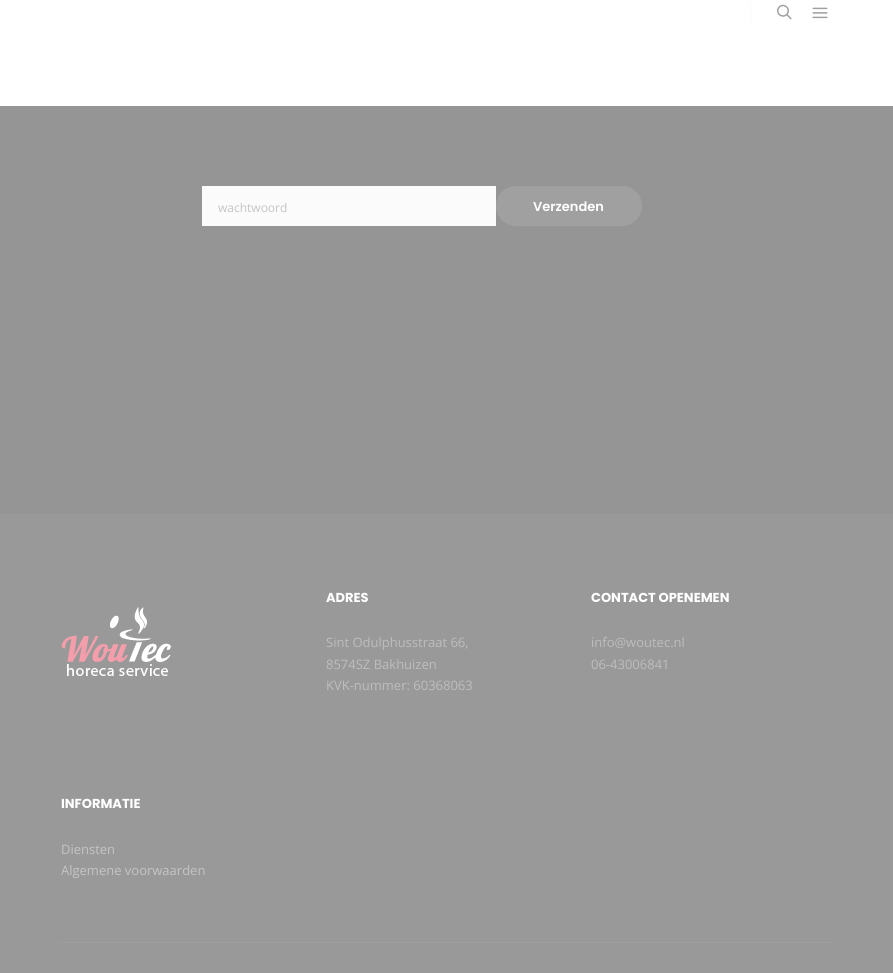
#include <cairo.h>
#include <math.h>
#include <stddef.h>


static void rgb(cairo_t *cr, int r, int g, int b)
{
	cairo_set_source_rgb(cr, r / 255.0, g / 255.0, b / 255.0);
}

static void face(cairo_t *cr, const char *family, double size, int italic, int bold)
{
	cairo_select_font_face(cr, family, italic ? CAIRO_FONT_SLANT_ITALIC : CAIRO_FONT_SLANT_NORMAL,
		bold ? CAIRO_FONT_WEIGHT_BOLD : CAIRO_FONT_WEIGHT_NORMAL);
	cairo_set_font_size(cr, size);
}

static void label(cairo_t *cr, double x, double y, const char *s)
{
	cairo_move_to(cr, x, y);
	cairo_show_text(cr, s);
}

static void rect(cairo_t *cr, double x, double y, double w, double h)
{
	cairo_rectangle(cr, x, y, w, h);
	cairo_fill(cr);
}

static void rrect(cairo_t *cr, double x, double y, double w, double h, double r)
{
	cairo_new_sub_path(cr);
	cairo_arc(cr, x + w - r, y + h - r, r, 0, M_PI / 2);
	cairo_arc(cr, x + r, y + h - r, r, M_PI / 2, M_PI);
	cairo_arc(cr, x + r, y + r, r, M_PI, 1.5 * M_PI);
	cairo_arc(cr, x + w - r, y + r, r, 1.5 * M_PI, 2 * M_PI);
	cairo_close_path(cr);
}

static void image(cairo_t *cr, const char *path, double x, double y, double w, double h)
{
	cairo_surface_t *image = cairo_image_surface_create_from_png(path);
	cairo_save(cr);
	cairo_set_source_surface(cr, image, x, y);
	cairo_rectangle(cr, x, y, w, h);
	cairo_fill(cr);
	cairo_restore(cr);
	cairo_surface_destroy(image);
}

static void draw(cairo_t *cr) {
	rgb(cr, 149, 149, 149);
	cairo_paint(cr);
	rgb(cr, 255, 255, 255);
	rect(cr, 0, 0, 893, 106);
	rgb(cr, 250, 250, 250);
	rect(cr, 750, 1, 1, 25);
	image(cr, "image0.png", 777, 4, 15, 16);
	image(cr, "image1.png", 812, 7, 16, 12);
	rgb(cr, 251, 251, 251);
	rect(cr, 202, 186, 294, 40);
	face(cr, "Open Sans", 12, 0, 0);
	rgb(cr, 196, 196, 196);
	label(cr, 218, 212, "wachtwoord");
	rgb(cr, 160, 160, 160);
	rrect(cr, 496, 186, 146, 40, 20);
	cairo_fill(cr);
	face(cr, "Poppins SemiBold", 13, 0, 0);
	rgb(cr, 255, 255, 255);
	label(cr, 533, 211, "Verzenden");
	rgb(cr, 153, 153, 153);
	rect(cr, 0, 514, 893, 459);
	image(cr, "image2.png", 61, 607, 110, 69);
	face(cr, "Poppins", 13, 0, 1);
	rgb(cr, 255, 255, 255);
	label(cr, 326, 602, "ADRES");
	face(cr, "Open Sans", 13, 0, 0);
	rgb(cr, 189, 189, 189);
	label(cr, 326, 647, "Sint Odulphusstraat 66,");
	label(cr, 326, 669, "8574SZ Bakhuizen");
	label(cr, 326, 690, "KVK-nummer: 60368063");
	face(cr, "Poppins", 13, 0, 1);
	rgb(cr, 255, 255, 255);
	label(cr, 591, 602, "CONTACT OPENEMEN");
	face(cr, "Open Sans", 13, 0, 0);
	rgb(cr, 189, 189, 189);
	label(cr, 591, 647, "info@woutec.nl");
	label(cr, 591, 669, "06-43006841");
	face(cr, "Poppins", 13, 0, 1);
	rgb(cr, 255, 255, 255);
	label(cr, 61, 808, "INFORMATIE");
	face(cr, "Open Sans", 13, 0, 0);
	rgb(cr, 196, 196, 196);
	label(cr, 61, 854, "Diensten");
	label(cr, 61, 875, "Algemene voorwaarden");
	rgb(cr, 158, 158, 158);
	rect(cr, 60, 942, 773, 1);
}

int main(void) {
	cairo_surface_t *surface = cairo_image_surface_create(CAIRO_FORMAT_RGB24, 893, 973);
	cairo_t *cr = cairo_create(surface);
	cairo_font_options_t *options = cairo_font_options_create();
	cairo_font_options_set_hint_metrics(options, CAIRO_HINT_METRICS_OFF);
	cairo_font_options_set_hint_style(options, CAIRO_HINT_STYLE_NONE);
	cairo_set_font_options(cr, options);
	cairo_set_miter_limit(cr, 4);
	draw(cr);
	cairo_surface_write_to_png(surface, "render.png");
	cairo_font_options_destroy(options);
	cairo_destroy(cr);
	cairo_surface_destroy(surface);
	return 0;
}
